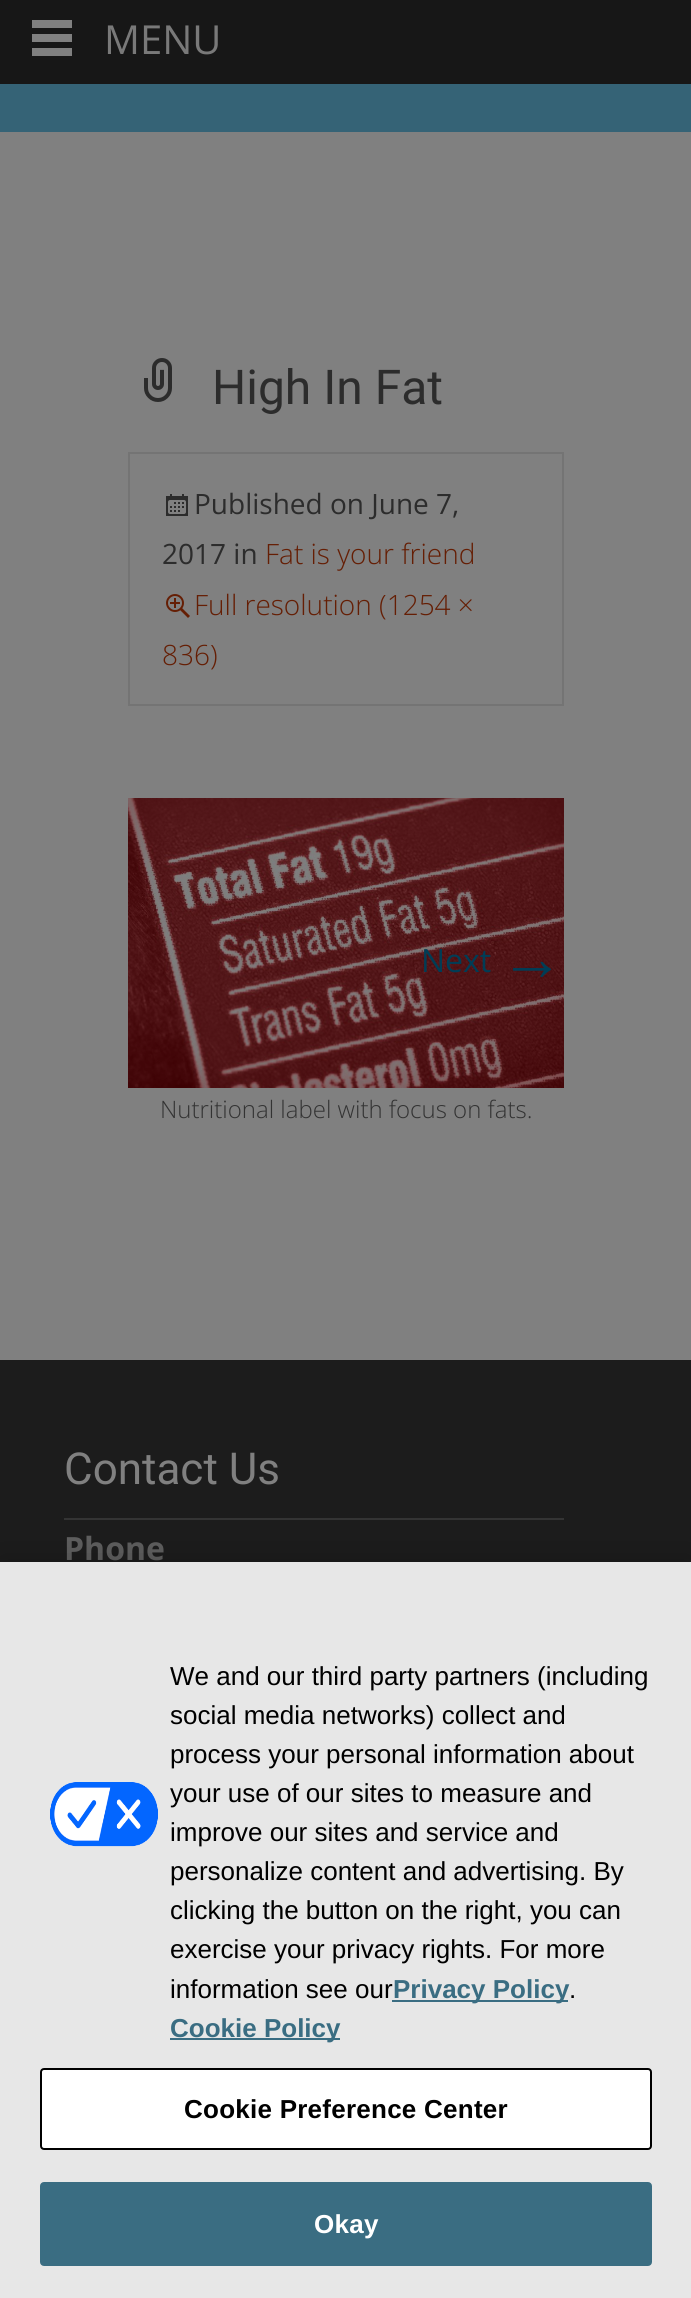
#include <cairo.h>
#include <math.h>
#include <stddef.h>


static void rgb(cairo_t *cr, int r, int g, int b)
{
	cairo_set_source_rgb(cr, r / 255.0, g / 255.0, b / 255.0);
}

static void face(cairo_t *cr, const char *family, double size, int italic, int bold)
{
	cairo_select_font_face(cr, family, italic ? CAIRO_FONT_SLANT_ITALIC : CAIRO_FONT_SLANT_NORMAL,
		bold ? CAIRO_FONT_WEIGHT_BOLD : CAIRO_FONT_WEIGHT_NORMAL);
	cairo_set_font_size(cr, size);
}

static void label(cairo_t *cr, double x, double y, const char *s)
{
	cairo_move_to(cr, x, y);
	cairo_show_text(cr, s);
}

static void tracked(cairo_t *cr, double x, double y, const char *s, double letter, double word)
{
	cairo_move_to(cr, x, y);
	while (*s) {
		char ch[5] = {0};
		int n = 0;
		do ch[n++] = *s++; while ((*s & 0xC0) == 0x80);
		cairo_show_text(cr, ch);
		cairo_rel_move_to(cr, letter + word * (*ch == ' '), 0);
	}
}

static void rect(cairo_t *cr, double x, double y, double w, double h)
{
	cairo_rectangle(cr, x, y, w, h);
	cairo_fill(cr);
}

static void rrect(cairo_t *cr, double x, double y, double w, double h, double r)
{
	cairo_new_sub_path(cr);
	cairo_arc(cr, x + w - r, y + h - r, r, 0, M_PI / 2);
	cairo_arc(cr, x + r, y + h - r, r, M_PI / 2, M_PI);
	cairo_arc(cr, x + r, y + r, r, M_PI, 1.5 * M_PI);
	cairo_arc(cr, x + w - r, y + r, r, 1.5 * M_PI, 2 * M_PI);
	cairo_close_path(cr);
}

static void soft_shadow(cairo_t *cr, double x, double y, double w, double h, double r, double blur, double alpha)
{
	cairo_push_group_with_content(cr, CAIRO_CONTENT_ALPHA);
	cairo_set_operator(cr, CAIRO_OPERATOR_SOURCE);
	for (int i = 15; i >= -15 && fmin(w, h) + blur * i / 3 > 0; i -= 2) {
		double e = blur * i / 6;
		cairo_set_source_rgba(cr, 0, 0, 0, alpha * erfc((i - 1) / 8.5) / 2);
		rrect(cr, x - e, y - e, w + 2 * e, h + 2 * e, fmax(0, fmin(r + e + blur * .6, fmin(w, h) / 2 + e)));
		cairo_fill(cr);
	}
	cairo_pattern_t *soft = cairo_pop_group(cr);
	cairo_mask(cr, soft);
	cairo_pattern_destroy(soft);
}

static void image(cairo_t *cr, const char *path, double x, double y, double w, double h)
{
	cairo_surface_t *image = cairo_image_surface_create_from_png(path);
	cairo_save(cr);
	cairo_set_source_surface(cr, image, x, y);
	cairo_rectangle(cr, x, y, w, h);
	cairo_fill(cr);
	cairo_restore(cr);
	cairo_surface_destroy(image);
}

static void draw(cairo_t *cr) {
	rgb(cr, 128, 128, 128);
	cairo_paint(cr);
	rgb(cr, 23, 23, 23);
	rect(cr, 0, 0, 691, 84);
	rgb(cr, 128, 128, 128);
	rect(cr, 32, 20, 40, 8);
	rect(cr, 32, 34, 40, 8);
	rect(cr, 32, 48, 40, 8);
	face(cr, "Open Sans", 40, 0, 0);
	rgb(cr, 121, 121, 121);
	label(cr, 104, 54, "MENU");
	rgb(cr, 53, 99, 118);
	rect(cr, 0, 84, 691, 48);
	image(cr, "image0.png", 144, 358, 28, 44);
	face(cr, "Roboto", 48, 0, 0);
	rgb(cr, 44, 44, 44);
	label(cr, 212, 404, "High In Fat");
	cairo_rectangle(cr, 129, 453, 434, 252);
	rgb(cr, 116, 116, 116);
	cairo_stroke(cr);
	image(cr, "image1.png", 166, 494, 22, 22);
	face(cr, "Open Sans", 28, 0, 0);
	rgb(cr, 44, 44, 44);
	label(cr, 194, 514, "Published on June 7,");
	label(cr, 162, 564, "2017 in");
	face(cr, "Open Sans Light", 28, 0, 0);
	rgb(cr, 101, 30, 4);
	label(cr, 265, 564, "Fat is your friend");
	image(cr, "image2.png", 166, 594, 24, 24);
	label(cr, 194, 615, "Full resolution (1254 ×");
	label(cr, 162, 665, "836)");
	image(cr, "image3.png", 128, 798, 436, 290);
	face(cr, "Open Sans", 32, 0, 0);
	rgb(cr, 0, 61, 86);
	label(cr, 421, 972, "Next");
	face(cr, "Liberation Sans", 64, 0, 0);
	label(cr, 500, 980, "→");
	face(cr, "Open Sans Light", 24, 0, 0);
	rgb(cr, 51, 51, 51);
	label(cr, 160, 1118, "Nutritional label with focus on fats.");
	rgb(cr, 28, 28, 28);
	rect(cr, 0, 1360, 691, 202);
	rgb(cr, 52, 52, 52);
	rect(cr, 64, 1518, 500, 2);
	face(cr, "Roboto", 44, 0, 0);
	rgb(cr, 128, 128, 128);
	label(cr, 64, 1484, "Contact Us");
	face(cr, "Open Sans", 32, 0, 1);
	rgb(cr, 94, 94, 94);
	label(cr, 64, 1560, "Phone");
	rgb(cr, 0, 0, 0);
	soft_shadow(cr, 0, 1562, 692, 736, 0, 18, 0.2);
	rgb(cr, 231, 231, 231);
	rect(cr, 0, 1562, 691, 736);
	image(cr, "image4.png", 50, 1782, 108, 65);
	face(cr, "Liberation Sans", 26, 0, 0);
	rgb(cr, 0, 0, 0);
	label(cr, 170, 1685, "We and our third party partners (including");
	label(cr, 170, 1724, "social media networks) collect and");
	label(cr, 170, 1763, "process your personal information about");
	label(cr, 170, 1802, "your use of our sites to measure and");
	label(cr, 170, 1841, "improve our sites and service and");
	label(cr, 170, 1880, "personalize content and advertising. By");
	label(cr, 170, 1919, "clicking the button on the right, you can");
	label(cr, 170, 1958, "exercise your privacy rights. For more");
	label(cr, 170, 1998, "information see our");
	rgb(cr, 58, 109, 130);
	rect(cr, 392, 2000, 176, 2);
	face(cr, "Liberation Sans", 26, 0, 1);
	label(cr, 393, 1998, "Privacy Policy");
	face(cr, "Liberation Sans", 26, 0, 0);
	rgb(cr, 0, 0, 0);
	label(cr, 569, 1998, ".");
	rgb(cr, 58, 109, 130);
	rect(cr, 170, 2038, 170, 2);
	face(cr, "Liberation Sans", 26, 0, 1);
	label(cr, 170, 2037, "Cookie Policy");
	rgb(cr, 255, 255, 255);
	rrect(cr, 41, 2069, 610, 80, 3);
	cairo_fill_preserve(cr);
	rgb(cr, 0, 0, 0);
	cairo_stroke(cr);
	tracked(cr, 184, 2118, "Cookie Preference Center", 0.25, 0);
	rgb(cr, 58, 109, 130);
	rrect(cr, 41, 2183, 610, 82, 3);
	cairo_fill_preserve(cr);
	cairo_stroke(cr);
	rgb(cr, 255, 255, 255);
	tracked(cr, 314, 2233, "Okay", 0.25, 0);
}

int main(void) {
	cairo_surface_t *surface = cairo_image_surface_create(CAIRO_FORMAT_RGB24, 691, 2298);
	cairo_t *cr = cairo_create(surface);
	cairo_font_options_t *options = cairo_font_options_create();
	cairo_font_options_set_hint_metrics(options, CAIRO_HINT_METRICS_OFF);
	cairo_font_options_set_hint_style(options, CAIRO_HINT_STYLE_NONE);
	cairo_set_font_options(cr, options);
	cairo_set_miter_limit(cr, 4);
	draw(cr);
	cairo_surface_write_to_png(surface, "render.png");
	cairo_font_options_destroy(options);
	cairo_destroy(cr);
	cairo_surface_destroy(surface);
	return 0;
}
